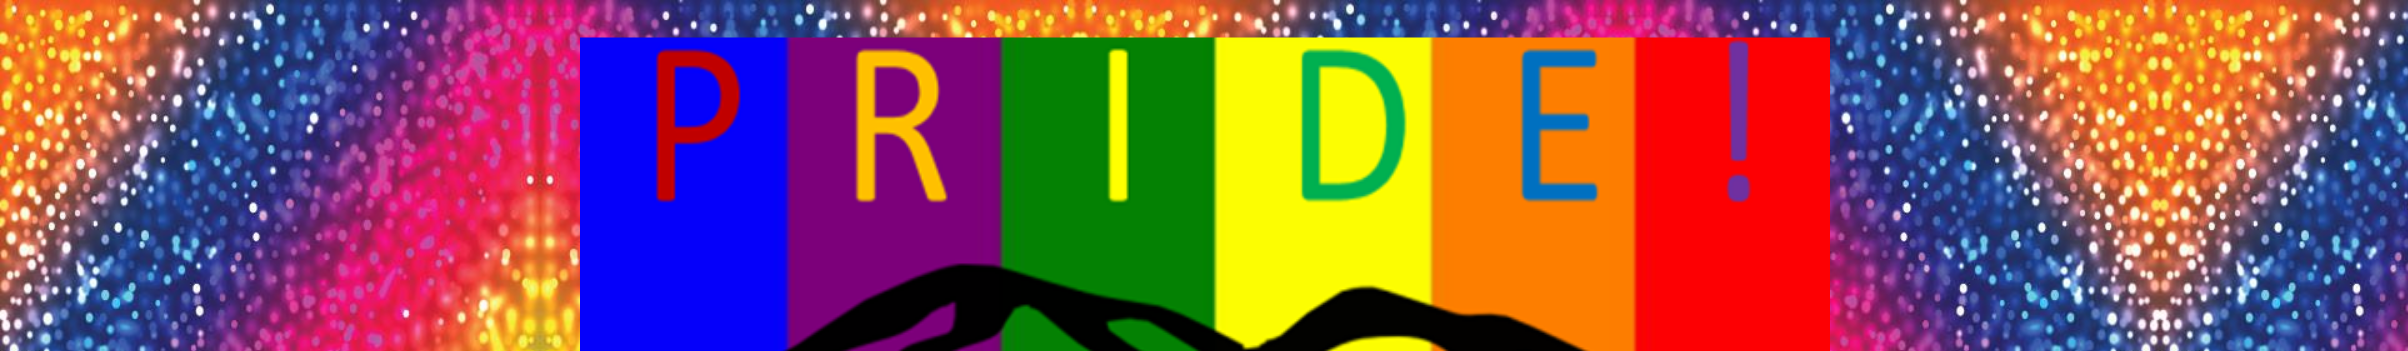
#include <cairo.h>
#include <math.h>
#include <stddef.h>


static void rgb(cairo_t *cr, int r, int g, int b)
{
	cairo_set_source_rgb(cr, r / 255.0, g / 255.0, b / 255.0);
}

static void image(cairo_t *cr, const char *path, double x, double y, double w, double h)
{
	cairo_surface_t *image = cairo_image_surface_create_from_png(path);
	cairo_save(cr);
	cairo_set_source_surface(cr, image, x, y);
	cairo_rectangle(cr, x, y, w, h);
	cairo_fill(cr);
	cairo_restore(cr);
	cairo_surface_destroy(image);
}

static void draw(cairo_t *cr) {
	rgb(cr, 255, 255, 255);
	cairo_paint(cr);
	image(cr, "image0.png", 0, 0, 2408, 351);
	image(cr, "image1.png", 580, 37, 1250, 314);
}

int main(void) {
	cairo_surface_t *surface = cairo_image_surface_create(CAIRO_FORMAT_RGB24, 2408, 351);
	cairo_t *cr = cairo_create(surface);
	cairo_font_options_t *options = cairo_font_options_create();
	cairo_font_options_set_hint_metrics(options, CAIRO_HINT_METRICS_OFF);
	cairo_font_options_set_hint_style(options, CAIRO_HINT_STYLE_NONE);
	cairo_set_font_options(cr, options);
	cairo_set_miter_limit(cr, 4);
	draw(cr);
	cairo_surface_write_to_png(surface, "render.png");
	cairo_font_options_destroy(options);
	cairo_destroy(cr);
	cairo_surface_destroy(surface);
	return 0;
}
